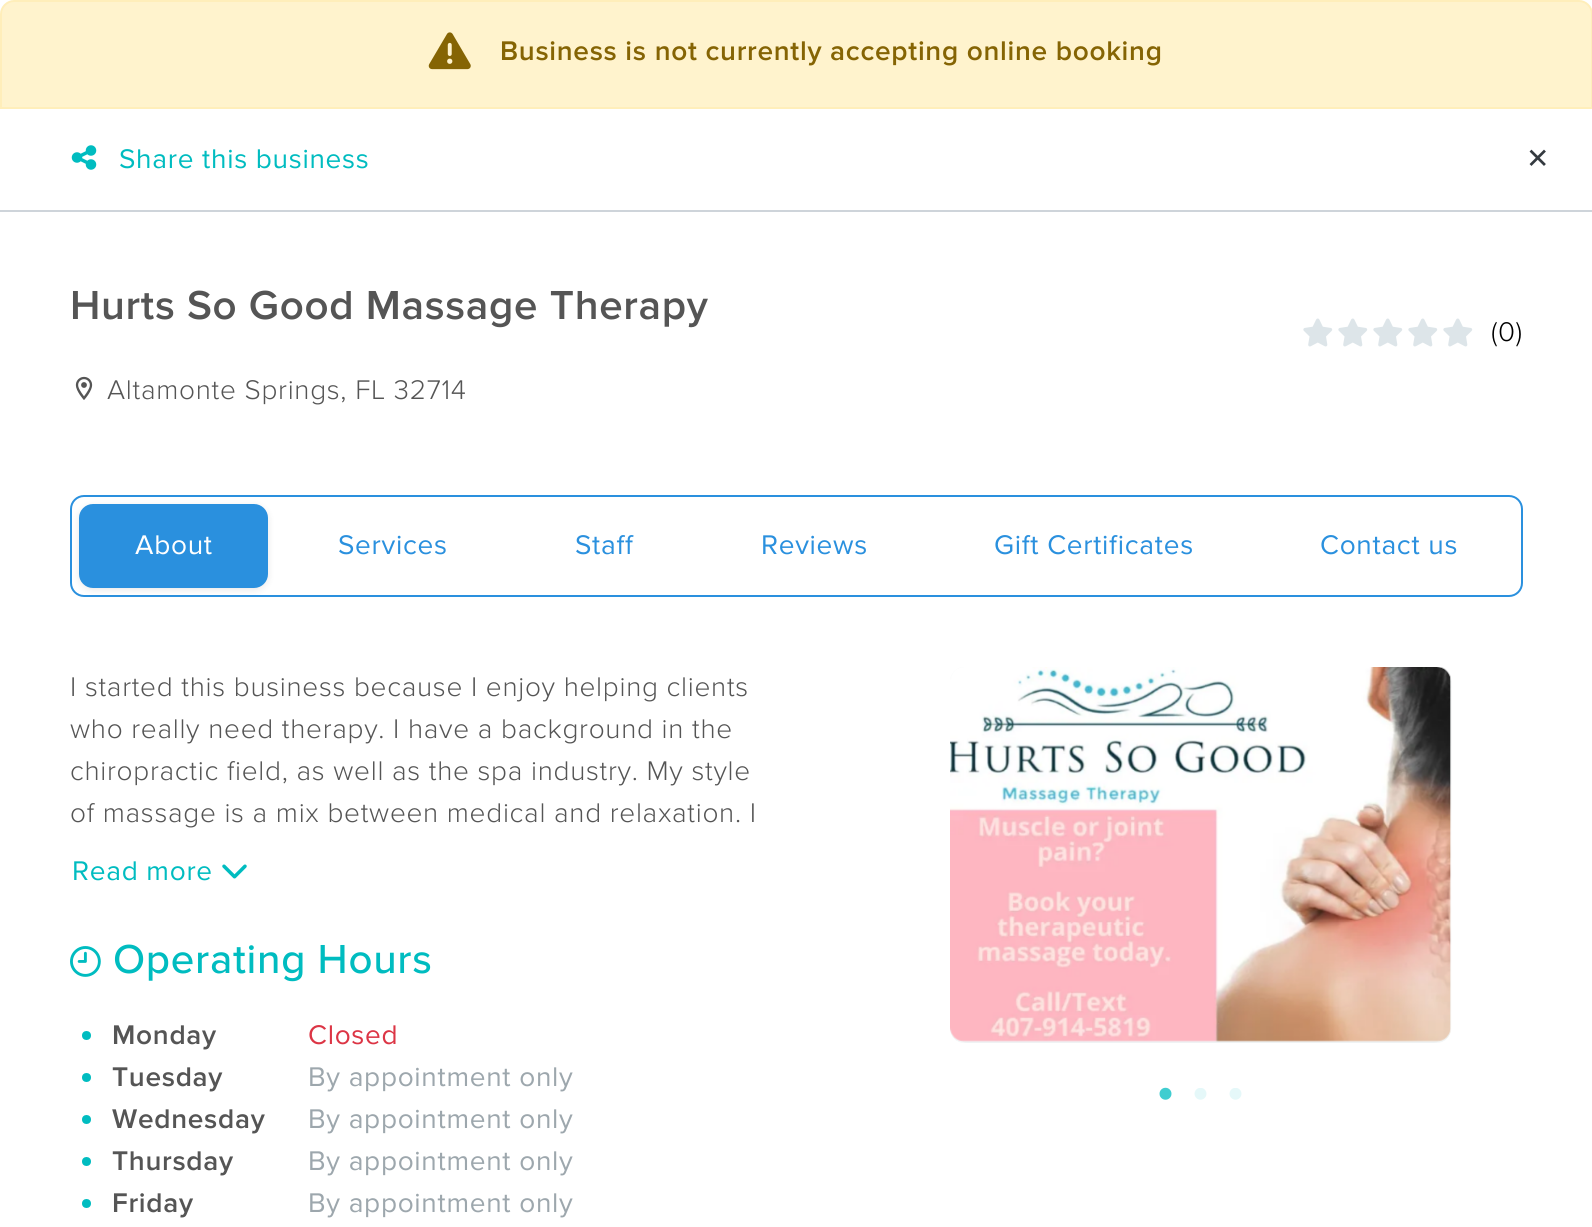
#include <cairo.h>
#include <math.h>
#include <stddef.h>


static void rgb(cairo_t *cr, int r, int g, int b)
{
	cairo_set_source_rgb(cr, r / 255.0, g / 255.0, b / 255.0);
}

static void face(cairo_t *cr, const char *family, double size, int italic, int bold)
{
	cairo_select_font_face(cr, family, italic ? CAIRO_FONT_SLANT_ITALIC : CAIRO_FONT_SLANT_NORMAL,
		bold ? CAIRO_FONT_WEIGHT_BOLD : CAIRO_FONT_WEIGHT_NORMAL);
	cairo_set_font_size(cr, size);
}

static void tracked(cairo_t *cr, double x, double y, const char *s, double letter, double word)
{
	cairo_move_to(cr, x, y);
	while (*s) {
		char ch[5] = {0};
		int n = 0;
		do ch[n++] = *s++; while ((*s & 0xC0) == 0x80);
		cairo_show_text(cr, ch);
		cairo_rel_move_to(cr, letter + word * (*ch == ' '), 0);
	}
}

static void rect(cairo_t *cr, double x, double y, double w, double h)
{
	cairo_rectangle(cr, x, y, w, h);
	cairo_fill(cr);
}

static void rrect(cairo_t *cr, double x, double y, double w, double h, double r)
{
	cairo_new_sub_path(cr);
	cairo_arc(cr, x + w - r, y + h - r, r, 0, M_PI / 2);
	cairo_arc(cr, x + r, y + h - r, r, M_PI / 2, M_PI);
	cairo_arc(cr, x + r, y + r, r, M_PI, 1.5 * M_PI);
	cairo_arc(cr, x + w - r, y + r, r, 1.5 * M_PI, 2 * M_PI);
	cairo_close_path(cr);
}

static void soft_shadow(cairo_t *cr, double x, double y, double w, double h, double r, double blur, double alpha)
{
	cairo_push_group_with_content(cr, CAIRO_CONTENT_ALPHA);
	cairo_set_operator(cr, CAIRO_OPERATOR_SOURCE);
	for (int i = 15; i >= -15 && fmin(w, h) + blur * i / 3 > 0; i -= 2) {
		double e = blur * i / 6;
		cairo_set_source_rgba(cr, 0, 0, 0, alpha * erfc((i - 1) / 8.5) / 2);
		rrect(cr, x - e, y - e, w + 2 * e, h + 2 * e, fmax(0, fmin(r + e + blur * .6, fmin(w, h) / 2 + e)));
		cairo_fill(cr);
	}
	cairo_pattern_t *soft = cairo_pop_group(cr);
	cairo_mask(cr, soft);
	cairo_pattern_destroy(soft);
}

static void image(cairo_t *cr, const char *path, double x, double y, double w, double h)
{
	cairo_surface_t *image = cairo_image_surface_create_from_png(path);
	cairo_save(cr);
	cairo_set_source_surface(cr, image, x, y);
	cairo_rectangle(cr, x, y, w, h);
	cairo_fill(cr);
	cairo_restore(cr);
	cairo_surface_destroy(image);
}

static void draw(cairo_t *cr) {
	rgb(cr, 255, 255, 255);
	cairo_paint(cr);
	rgb(cr, 255, 243, 205);
	cairo_new_path(cr);
	cairo_move_to(cr, 14, 1);
	cairo_line_to(cr, 1579, 1);
	cairo_curve_to(cr, 1586, 1, 1592, 7, 1592, 14);
	cairo_line_to(cr, 1592, 108);
	cairo_line_to(cr, 1, 108);
	cairo_line_to(cr, 1, 14);
	cairo_curve_to(cr, 1, 7, 7, 1, 14, 1);
	cairo_close_path(cr);
	cairo_fill_preserve(cr);
	rgb(cr, 255, 238, 186);
	cairo_stroke(cr);
	image(cr, "image0.png", 428, 32, 43, 38);
	face(cr, "Proxima Nova SemiBold", 28, 0, 0);
	rgb(cr, 133, 100, 4);
	tracked(cr, 500, 60, "Business is not currently accepting online booking", 0.7, 0);
	rgb(cr, 206, 212, 218);
	rect(cr, 0, 210, 1592, 2);
	image(cr, "image1.png", 71, 145, 26, 25);
	face(cr, "Proxima Nova", 28, 0, 0);
	rgb(cr, 0, 188, 192);
	tracked(cr, 119, 168, "Share this business", 0.7, 0);
	face(cr, "DejaVu Sans", 28, 0, 0);
	rgb(cr, 52, 58, 64);
	tracked(cr, 1526, 168, "✕", 0.7, 0);
	face(cr, "Proxima Nova SemiBold", 42, 0, 0);
	rgb(cr, 85, 85, 85);
	tracked(cr, 70, 319, "Hurts So Good Massage Therapy", 0.7, 0);
	image(cr, "image2.png", 75, 376, 18, 24);
	face(cr, "Proxima Nova Light", 28, 0, 0);
	tracked(cr, 107, 399, "Altamonte Springs, FL 32714", 0.7, 0);
	image(cr, "image3.png", 1303, 318, 170, 29);
	rgb(cr, 0, 0, 0);
	tracked(cr, 1491, 341, "(0)", 0.7, 0);
	rrect(cr, 71, 496, 1451, 100, 13);
	rgb(cr, 42, 144, 222);
	cairo_stroke(cr);
	rgb(cr, 18, 18, 18);
	soft_shadow(cr, 79, 506, 189, 84, 14, 3.5, 0.1);
	rgb(cr, 42, 144, 222);
	rrect(cr, 79, 504, 189, 84, 14);
	cairo_fill(cr);
	face(cr, "Proxima Nova", 28, 0, 0);
	rgb(cr, 255, 255, 255);
	tracked(cr, 135, 554, "About", 0.7, 0);
	rgb(cr, 42, 144, 222);
	tracked(cr, 338, 554, "Services", 0.7, 0);
	tracked(cr, 575, 554, "Staff", 0.7, 0);
	tracked(cr, 761, 554, "Reviews", 0.7, 0);
	tracked(cr, 994, 554, "Gift Certificates", 0.7, 0);
	tracked(cr, 1320, 554, "Contact us", 0.7, 0);
	face(cr, "Proxima Nova Light", 28, 0, 0);
	rgb(cr, 85, 85, 85);
	tracked(cr, 70, 696, "I started this business because I enjoy helping clients", 0.7, 0);
	tracked(cr, 70, 738, "who really need therapy. I have a background in the", 0.7, 0);
	tracked(cr, 70, 780, "chiropractic field, as well as the spa industry. My style", 0.7, 0);
	tracked(cr, 70, 822, "of massage is a mix between medical and relaxation. I", 0.7, 0);
	face(cr, "Proxima Nova", 28, 0, 0);
	rgb(cr, 0, 188, 192);
	tracked(cr, 72, 880, "Read more", 0.7, 0);
	image(cr, "image4.png", 222, 864, 25, 15);
	image(cr, "image5.png", 70, 946, 31, 31);
	face(cr, "Proxima Nova Medium", 42, 0, 0);
	tracked(cr, 113, 973, "Operating Hours", 0.7, 0);
	cairo_new_path(cr);
	cairo_arc(cr, 86.5, 1035.5, 4.5, 0, 2 * M_PI);
	cairo_fill(cr);
	face(cr, "Proxima Nova SemiBold", 28, 0, 0);
	rgb(cr, 85, 85, 85);
	tracked(cr, 112, 1044, "Monday", 0.7, 0);
	face(cr, "Proxima Nova", 28, 0, 0);
	rgb(cr, 220, 53, 69);
	tracked(cr, 308, 1044, "Closed", 0.7, 0);
	rgb(cr, 0, 188, 192);
	cairo_new_path(cr);
	cairo_arc(cr, 86.5, 1077.5, 4.5, 0, 2 * M_PI);
	cairo_fill(cr);
	face(cr, "Proxima Nova SemiBold", 28, 0, 0);
	rgb(cr, 85, 85, 85);
	tracked(cr, 112, 1086, "Tuesday", 0.7, 0);
	face(cr, "Proxima Nova", 28, 0, 0);
	rgb(cr, 157, 167, 173);
	tracked(cr, 308, 1086, "By appointment only", 0.7, 0);
	rgb(cr, 0, 188, 192);
	cairo_new_path(cr);
	cairo_arc(cr, 86.5, 1119.5, 4.5, 0, 2 * M_PI);
	cairo_fill(cr);
	face(cr, "Proxima Nova SemiBold", 28, 0, 0);
	rgb(cr, 85, 85, 85);
	tracked(cr, 112, 1128, "Wednesday", 0.7, 0);
	face(cr, "Proxima Nova", 28, 0, 0);
	rgb(cr, 157, 167, 173);
	tracked(cr, 308, 1128, "By appointment only", 0.7, 0);
	rgb(cr, 0, 188, 192);
	cairo_new_path(cr);
	cairo_arc(cr, 86.5, 1161.5, 4.5, 0, 2 * M_PI);
	cairo_fill(cr);
	face(cr, "Proxima Nova SemiBold", 28, 0, 0);
	rgb(cr, 85, 85, 85);
	tracked(cr, 112, 1170, "Thursday", 0.7, 0);
	face(cr, "Proxima Nova", 28, 0, 0);
	rgb(cr, 157, 167, 173);
	tracked(cr, 308, 1170, "By appointment only", 0.7, 0);
	rgb(cr, 0, 188, 192);
	cairo_new_path(cr);
	cairo_arc(cr, 86.5, 1203.5, 4.5, 0, 2 * M_PI);
	cairo_fill(cr);
	face(cr, "Proxima Nova SemiBold", 28, 0, 0);
	rgb(cr, 85, 85, 85);
	tracked(cr, 112, 1212, "Friday", 0.7, 0);
	face(cr, "Proxima Nova", 28, 0, 0);
	rgb(cr, 157, 167, 173);
	tracked(cr, 308, 1212, "By appointment only", 0.7, 0);
	cairo_save(cr);
	rrect(cr, 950, 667, 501, 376, 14);
	cairo_clip(cr);
	rgb(cr, 3, 70, 74);
	soft_shadow(cr, 950, 670, 501, 375, 14, 10.5, 0.1);
	cairo_restore(cr);
	image(cr, "image6.png", 950, 667, 502, 375);
	image(cr, "image7.png", 1159, 1087, 13, 13);
	image(cr, "image8.png", 1194, 1088, 13, 12);
	image(cr, "image8.png", 1229, 1088, 13, 12);
}

int main(void) {
	cairo_surface_t *surface = cairo_image_surface_create(CAIRO_FORMAT_RGB24, 1592, 1227);
	cairo_t *cr = cairo_create(surface);
	cairo_font_options_t *options = cairo_font_options_create();
	cairo_font_options_set_hint_metrics(options, CAIRO_HINT_METRICS_OFF);
	cairo_font_options_set_hint_style(options, CAIRO_HINT_STYLE_NONE);
	cairo_set_font_options(cr, options);
	cairo_set_miter_limit(cr, 4);
	draw(cr);
	cairo_surface_write_to_png(surface, "render.png");
	cairo_font_options_destroy(options);
	cairo_destroy(cr);
	cairo_surface_destroy(surface);
	return 0;
}
